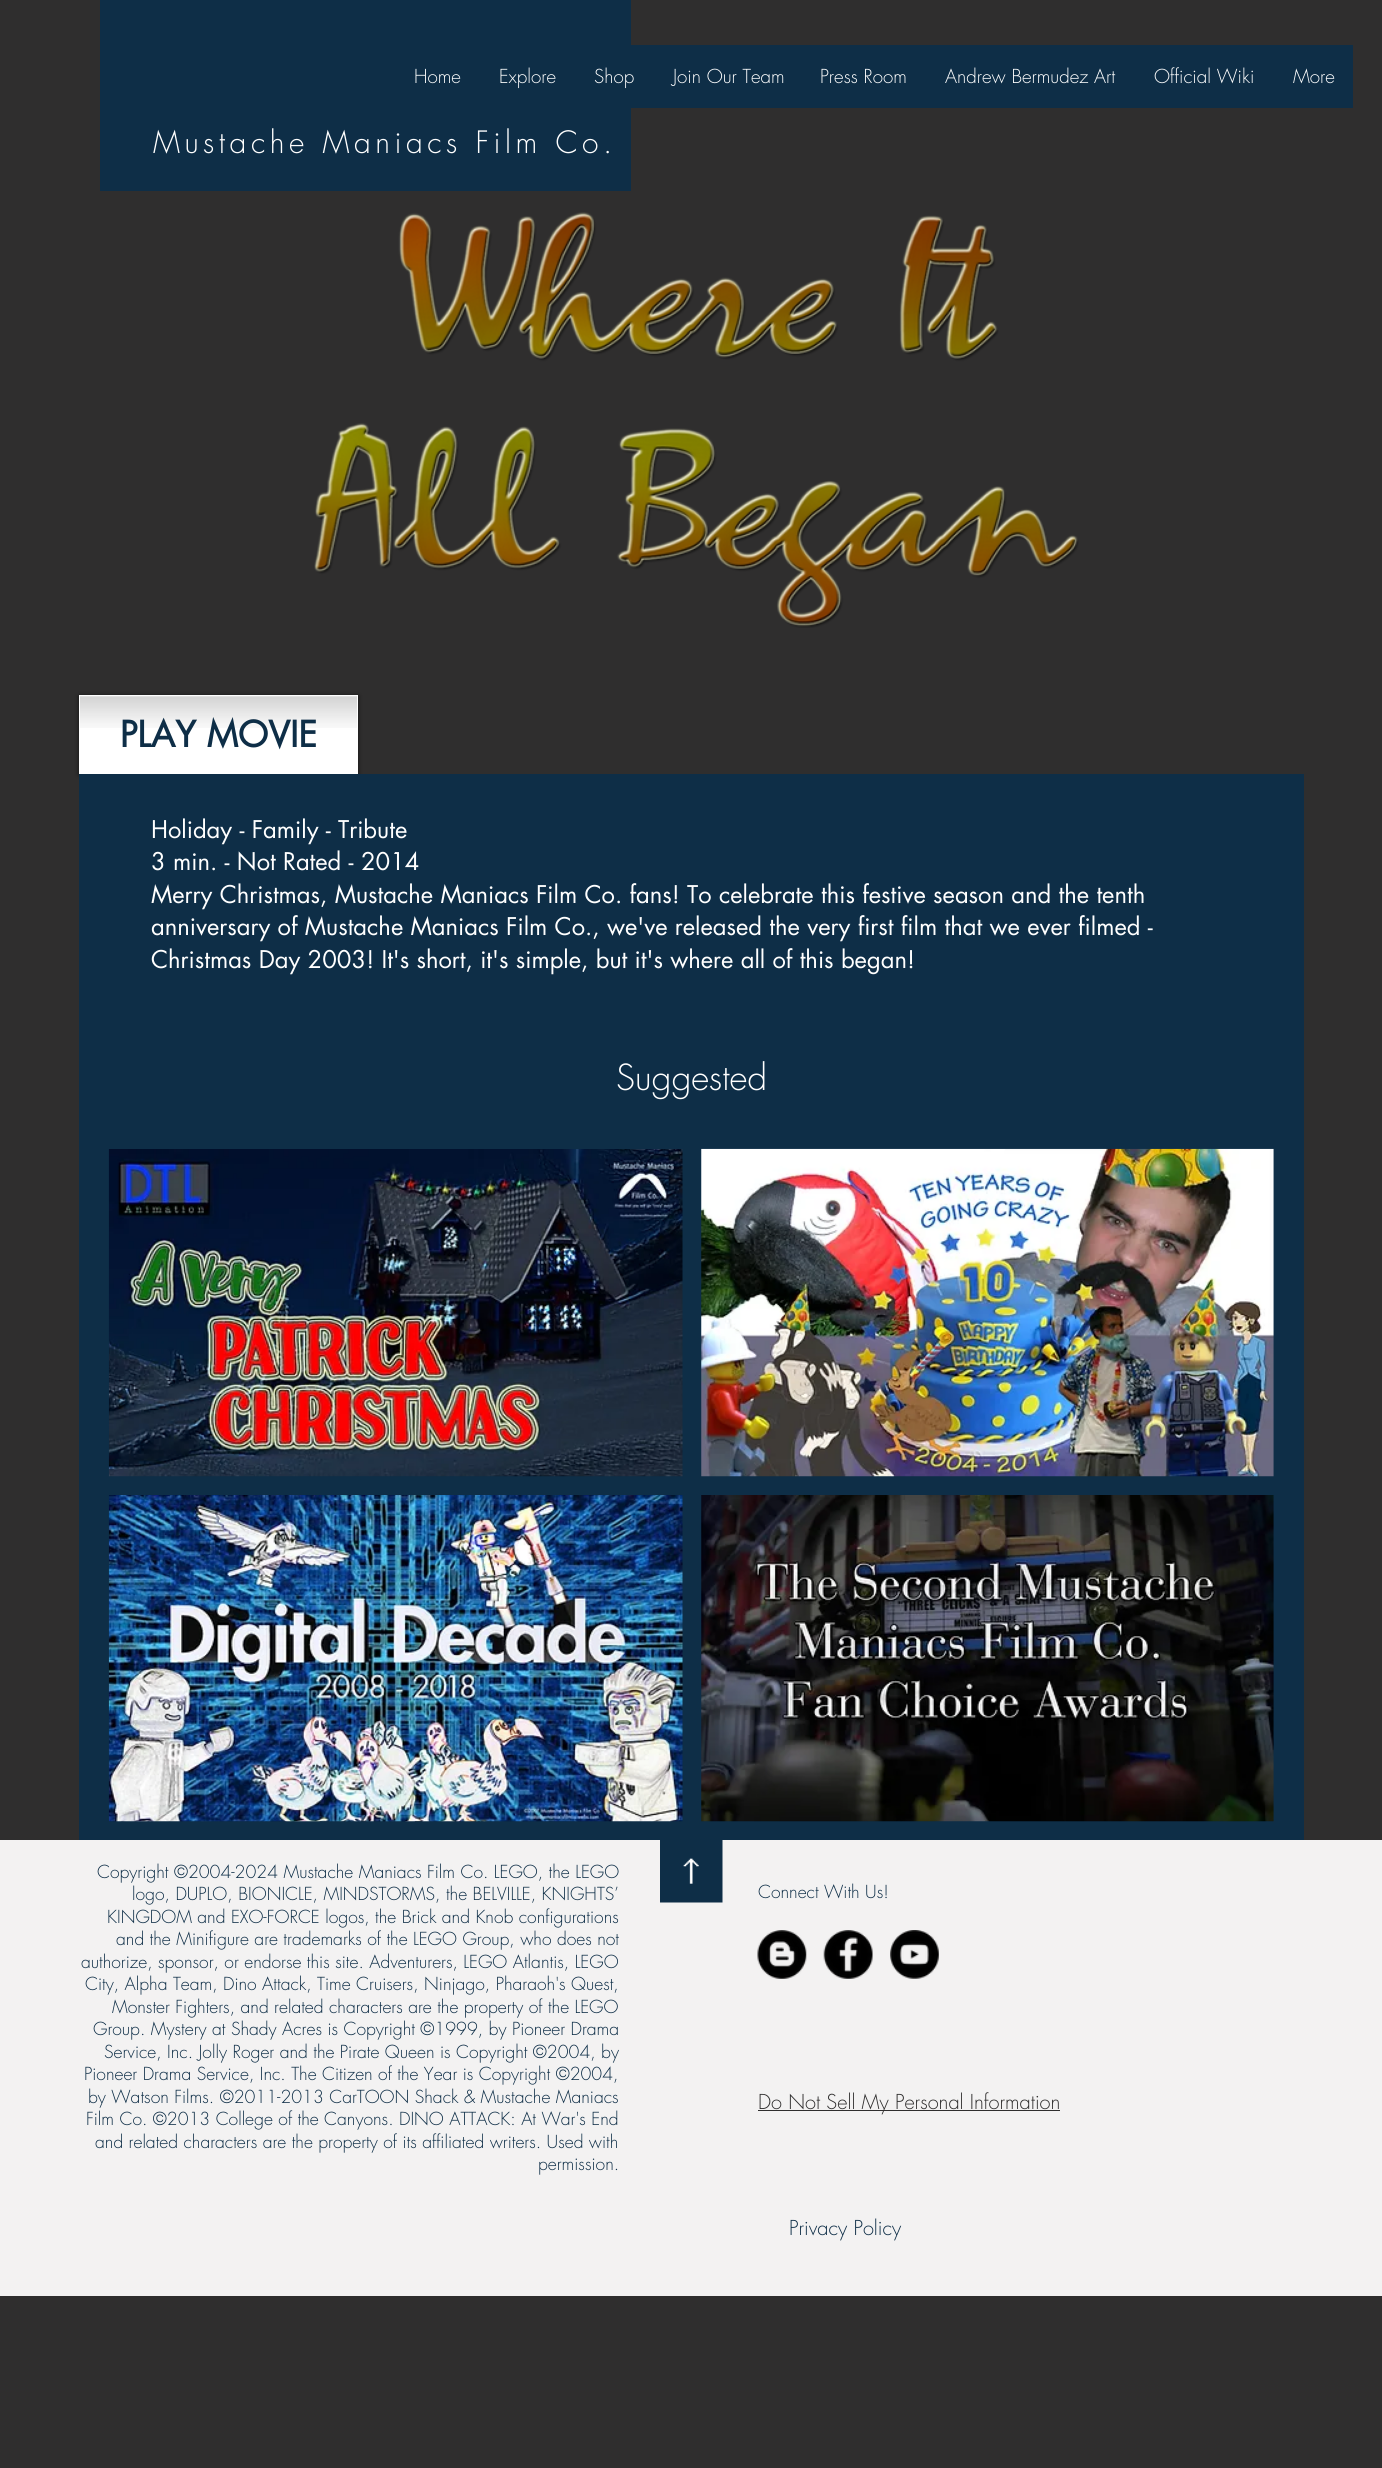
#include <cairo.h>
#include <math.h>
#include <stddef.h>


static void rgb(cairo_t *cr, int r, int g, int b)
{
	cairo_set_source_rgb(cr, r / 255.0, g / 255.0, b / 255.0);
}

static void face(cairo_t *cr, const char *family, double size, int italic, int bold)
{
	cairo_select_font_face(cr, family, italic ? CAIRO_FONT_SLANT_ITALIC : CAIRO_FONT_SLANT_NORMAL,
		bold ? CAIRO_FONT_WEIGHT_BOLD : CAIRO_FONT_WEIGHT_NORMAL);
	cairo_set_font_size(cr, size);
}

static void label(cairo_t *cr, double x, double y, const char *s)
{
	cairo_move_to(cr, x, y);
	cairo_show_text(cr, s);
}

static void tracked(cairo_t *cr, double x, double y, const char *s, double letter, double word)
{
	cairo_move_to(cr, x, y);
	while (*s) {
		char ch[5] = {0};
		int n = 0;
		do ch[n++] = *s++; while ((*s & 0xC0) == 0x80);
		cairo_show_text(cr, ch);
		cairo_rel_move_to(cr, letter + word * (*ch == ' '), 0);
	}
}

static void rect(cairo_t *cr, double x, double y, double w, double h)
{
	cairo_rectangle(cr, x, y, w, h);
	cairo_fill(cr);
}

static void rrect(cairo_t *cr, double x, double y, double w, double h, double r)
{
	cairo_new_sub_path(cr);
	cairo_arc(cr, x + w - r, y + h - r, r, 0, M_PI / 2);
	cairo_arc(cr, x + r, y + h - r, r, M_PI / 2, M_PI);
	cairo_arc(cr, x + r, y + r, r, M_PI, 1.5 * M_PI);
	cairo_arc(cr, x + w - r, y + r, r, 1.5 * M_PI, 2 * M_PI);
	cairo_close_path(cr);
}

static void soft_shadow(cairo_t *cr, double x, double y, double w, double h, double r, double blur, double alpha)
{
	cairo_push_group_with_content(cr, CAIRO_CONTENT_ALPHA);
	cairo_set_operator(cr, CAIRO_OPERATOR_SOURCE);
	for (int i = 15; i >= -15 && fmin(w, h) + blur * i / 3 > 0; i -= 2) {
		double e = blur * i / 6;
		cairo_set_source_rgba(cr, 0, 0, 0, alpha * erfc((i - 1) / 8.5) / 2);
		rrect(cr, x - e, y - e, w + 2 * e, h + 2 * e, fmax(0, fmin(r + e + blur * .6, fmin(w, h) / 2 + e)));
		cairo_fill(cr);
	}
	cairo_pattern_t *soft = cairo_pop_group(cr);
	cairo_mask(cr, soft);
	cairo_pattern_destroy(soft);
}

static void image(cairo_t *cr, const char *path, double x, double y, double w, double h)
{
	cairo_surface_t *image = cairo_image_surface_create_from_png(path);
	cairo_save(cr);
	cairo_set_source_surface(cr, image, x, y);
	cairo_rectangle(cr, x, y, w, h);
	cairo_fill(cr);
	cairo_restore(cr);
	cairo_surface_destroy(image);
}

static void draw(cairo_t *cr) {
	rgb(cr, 47, 46, 46);
	cairo_paint(cr);
	rgb(cr, 14, 46, 71);
	rect(cr, 631, 45, 722, 63);
	rect(cr, 100, 0, 531, 191);
	face(cr, "futura Light", 18.75, 0, 0);
	rgb(cr, 255, 255, 255);
	label(cr, 414, 83, "Home");
	label(cr, 499, 83, "Explore");
	label(cr, 594, 83, "Shop");
	label(cr, 673, 83, "Join Our Team");
	label(cr, 820, 83, "Press Room");
	label(cr, 945, 83, "Andrew Bermudez Art");
	label(cr, 1154, 83, "Official Wiki");
	label(cr, 1293, 83, "More");
	face(cr, "futura Light", 30, 0, 0);
	tracked(cr, 153, 153, "Mustache Maniacs Film Co.", 4.5, 0);
	image(cr, "image0.png", 314, 212, 765, 416);
	rgb(cr, 0, 0, 0);
	soft_shadow(cr, 79, 696, 279, 79, 0, 2.5, 0.6);
	rgb(cr, 255, 255, 255);
	rect(cr, 80, 696, 277, 77);
	image(cr, "image1.png", 80, 696, 277, 32);
	cairo_rectangle(cr, 79.5, 695.5, 278, 78);
	cairo_set_line_width(cr, 1);
	cairo_stroke(cr);
	face(cr, "futura", 35, 0, 1);
	rgb(cr, 14, 46, 71);
	label(cr, 120, 747, "PLAY MOVIE");
	rect(cr, 79, 774, 1225, 1066);
	face(cr, "futura", 23.75, 0, 0);
	rgb(cr, 255, 255, 255);
	label(cr, 151, 838, "Holiday - Family - Tribute");
	label(cr, 151, 870, "3 min. - Not Rated - 2014");
	label(cr, 151, 903, "Merry Christmas, Mustache Maniacs Film Co. fans! To celebrate this festive season and the tenth");
	label(cr, 151, 935, "anniversary of Mustache Maniacs Film Co., we've released the very first film that we ever filmed -");
	label(cr, 151, 968, "Christmas Day 2003! It's short, it's simple, but it's where all of this began!");
	face(cr, "futura Light", 35, 0, 0);
	label(cr, 616, 1090, "Suggested");
	image(cr, "image2.png", 108, 1149, 575, 328);
	image(cr, "image3.png", 701, 1148, 573, 329);
	image(cr, "image4.png", 108, 1495, 575, 327);
	image(cr, "image5.png", 701, 1495, 573, 327);
	rgb(cr, 243, 242, 242);
	rect(cr, 0, 1840, 1382, 456);
	face(cr, "futura Light", 17.5, 0, 0);
	rgb(cr, 14, 46, 71);
	label(cr, 97, 1878, "Copyright ©2004-2024 Mustache Maniacs Film Co. LEGO, the LEGO");
	label(cr, 132, 1900, "logo, DUPLO, BIONICLE, MINDSTORMS, the BELVILLE, KNIGHTS’");
	label(cr, 107, 1923, "KINGDOM and EXO-FORCE logos, the Brick and Knob configurations");
	label(cr, 116, 1945, "and the Minifigure are trademarks of the LEGO Group, who does not");
	label(cr, 81, 1968, "authorize, sponsor, or endorse this site. Adventurers, LEGO Atlantis, LEGO");
	label(cr, 85, 1990, "City, Alpha Team, Dino Attack, Time Cruisers, Ninjago, Pharaoh's Quest,");
	label(cr, 112, 2013, "Monster Fighters, and related characters are the property of the LEGO");
	label(cr, 93, 2035, "Group. Mystery at Shady Acres is Copyright ©1999, by Pioneer Drama");
	label(cr, 104, 2058, "Service, Inc. Jolly Roger and the Pirate Queen is Copyright ©2004, by");
	label(cr, 84, 2080, "Pioneer Drama Service, Inc. The Citizen of the Year is Copyright ©2004,");
	label(cr, 88, 2103, "by Watson Films. ©2011-2013 CarTOON Shack & Mustache Maniacs");
	label(cr, 86, 2125, "Film Co. ©2013 College of the Canyons. DINO ATTACK: At War's End");
	label(cr, 95, 2148, "and related characters are the property of its affiliated writers. Used with");
	label(cr, 538, 2170, "permission.");
	image(cr, "image6.png", 660, 1840, 63, 63);
	label(cr, 758, 1898, "Connect With Us!");
	image(cr, "image7.png", 757, 1930, 50, 49);
	image(cr, "image8.png", 823, 1930, 50, 49);
	image(cr, "image9.png", 890, 1930, 49, 49);
	rgb(cr, 47, 46, 46);
	rect(cr, 758, 2110, 302, 1);
	face(cr, "futura Light", 20, 0, 0);
	label(cr, 758, 2109, "Do Not Sell My Personal Information");
	rgb(cr, 14, 46, 71);
	label(cr, 789, 2235, "Privacy Policy");
}

int main(void) {
	cairo_surface_t *surface = cairo_image_surface_create(CAIRO_FORMAT_RGB24, 1382, 2468);
	cairo_t *cr = cairo_create(surface);
	cairo_font_options_t *options = cairo_font_options_create();
	cairo_font_options_set_hint_metrics(options, CAIRO_HINT_METRICS_OFF);
	cairo_font_options_set_hint_style(options, CAIRO_HINT_STYLE_NONE);
	cairo_set_font_options(cr, options);
	cairo_set_miter_limit(cr, 4);
	draw(cr);
	cairo_surface_write_to_png(surface, "render.png");
	cairo_font_options_destroy(options);
	cairo_destroy(cr);
	cairo_surface_destroy(surface);
	return 0;
}
